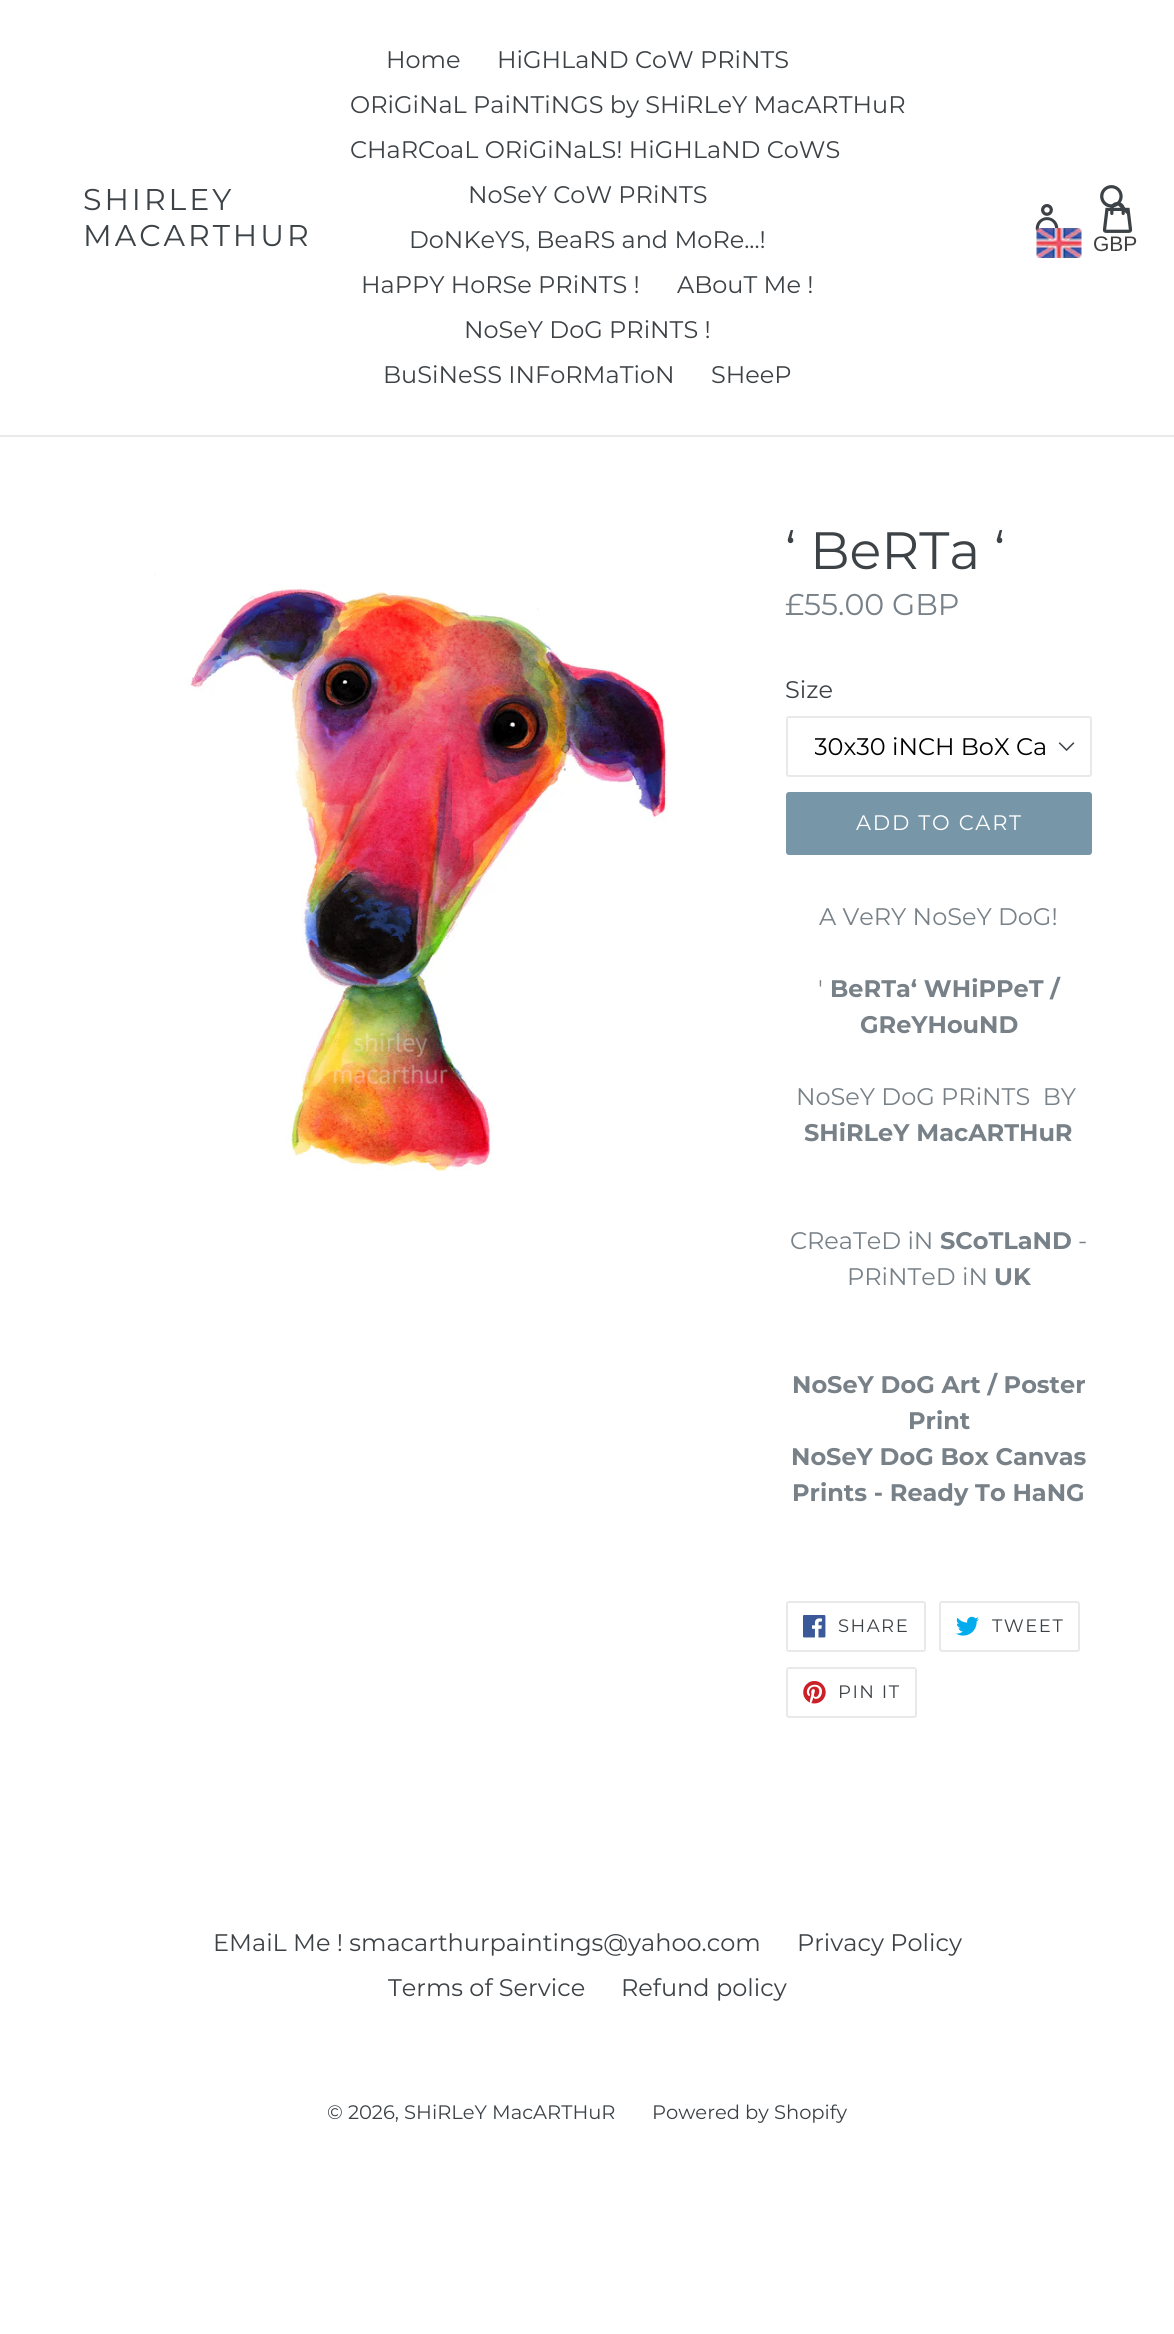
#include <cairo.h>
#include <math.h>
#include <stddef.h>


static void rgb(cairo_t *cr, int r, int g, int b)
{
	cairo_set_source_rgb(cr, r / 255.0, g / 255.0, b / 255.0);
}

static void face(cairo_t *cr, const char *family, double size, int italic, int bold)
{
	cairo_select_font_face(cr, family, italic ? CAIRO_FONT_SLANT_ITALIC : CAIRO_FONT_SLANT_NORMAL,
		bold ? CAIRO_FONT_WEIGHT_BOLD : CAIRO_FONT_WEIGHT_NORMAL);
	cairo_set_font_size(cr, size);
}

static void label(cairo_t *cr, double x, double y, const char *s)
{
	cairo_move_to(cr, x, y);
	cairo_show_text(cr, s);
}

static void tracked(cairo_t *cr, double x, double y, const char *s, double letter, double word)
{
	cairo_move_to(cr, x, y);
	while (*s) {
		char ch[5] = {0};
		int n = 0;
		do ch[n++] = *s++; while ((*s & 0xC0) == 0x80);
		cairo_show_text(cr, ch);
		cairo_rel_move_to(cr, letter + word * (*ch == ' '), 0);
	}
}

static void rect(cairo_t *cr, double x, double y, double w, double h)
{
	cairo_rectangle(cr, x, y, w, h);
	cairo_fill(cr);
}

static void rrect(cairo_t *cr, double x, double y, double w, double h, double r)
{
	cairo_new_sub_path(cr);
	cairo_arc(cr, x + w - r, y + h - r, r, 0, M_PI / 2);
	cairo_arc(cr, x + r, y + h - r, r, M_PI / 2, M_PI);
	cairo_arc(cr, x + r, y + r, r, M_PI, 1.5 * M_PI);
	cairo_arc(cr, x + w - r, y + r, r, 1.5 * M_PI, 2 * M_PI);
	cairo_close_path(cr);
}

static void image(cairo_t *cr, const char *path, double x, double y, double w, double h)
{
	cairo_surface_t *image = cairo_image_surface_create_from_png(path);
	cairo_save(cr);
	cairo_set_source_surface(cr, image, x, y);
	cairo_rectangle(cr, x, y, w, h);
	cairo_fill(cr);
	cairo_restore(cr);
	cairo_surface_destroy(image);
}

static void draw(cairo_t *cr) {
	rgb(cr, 255, 255, 255);
	cairo_paint(cr);
	rgb(cr, 232, 233, 235);
	rect(cr, 0, 435, 1174, 2);
	face(cr, "Montserrat Thin", 30, 0, 0);
	rgb(cr, 61, 66, 70);
	tracked(cr, 83, 210, "SHIRLEY", 3, 0);
	tracked(cr, 83, 246, "MACARTHUR", 3, 0);
	face(cr, "Montserrat Thin", 24, 0, 0);
	label(cr, 386, 68, "Home");
	label(cr, 497, 68, "HiGHLaND CoW PRiNTS");
	label(cr, 350, 113, "ORiGiNaL PaiNTiNGS by SHiRLeY MacARTHuR");
	label(cr, 350, 158, "CHaRCoaL ORiGiNaLS! HiGHLaND CoWS");
	label(cr, 468, 203, "NoSeY CoW PRiNTS");
	label(cr, 409, 248, "DoNKeYS, BeaRS and MoRe...!");
	label(cr, 361, 293, "HaPPY HoRSe PRiNTS !");
	label(cr, 677, 293, "ABouT Me !");
	label(cr, 464, 338, "NoSeY DoG PRiNTS !");
	label(cr, 383, 383, "BuSiNeSS INFoRMaTioN");
	label(cr, 711, 383, "SHeeP");
	image(cr, "image2.png", 1103, 201, 30, 32);
	image(cr, "image0.png", 1100, 185, 27, 29);
	image(cr, "image1.png", 1035, 204, 24, 29);
	image(cr, "image3.png", 1036, 228, 46, 30);
	face(cr, "Liberation Sans", 21, 0, 0);
	rgb(cr, 64, 63, 63);
	label(cr, 1093, 251, "GBP");
	image(cr, "image4.png", 154, 574, 514, 597);
	face(cr, "Montserrat Thin", 52.5, 0, 0);
	rgb(cr, 61, 66, 70);
	label(cr, 785, 569, "‘ BeRTa ‘");
	face(cr, "Montserrat Thin", 30, 0, 0);
	rgb(cr, 120, 129, 136);
	label(cr, 785, 615, "£55.00 GBP");
	face(cr, "Montserrat Thin", 24, 0, 0);
	rgb(cr, 61, 66, 70);
	label(cr, 785, 698, "Size");
	image(cr, "image5.png", 1058, 742, 17, 9);
	rrect(cr, 787, 717, 304, 59, 2);
	rgb(cr, 232, 233, 235);
	cairo_stroke(cr);
	cairo_save(cr);
	cairo_rectangle(cr, 815, 732, 234, 29);
	cairo_clip(cr);
	rgb(cr, 0, 0, 0);
	label(cr, 814, 755, "30x30 iNCH BoX Ca");
	cairo_restore(cr);
	rgb(cr, 119, 150, 168);
	rrect(cr, 786, 792, 306, 63, 3);
	cairo_fill(cr);
	face(cr, "Montserrat Thin", 21, 0, 0);
	rgb(cr, 255, 255, 255);
	tracked(cr, 856, 830, "ADD TO CART", 1.75, 0);
	face(cr, "Montserrat Thin", 24, 0, 0);
	rgb(cr, 120, 129, 136);
	label(cr, 819, 925, "A VeRY NoSeY DoG!");
	label(cr, 818, 997, "'");
	face(cr, "Montserrat", 24, 0, 1);
	label(cr, 830, 997, "BeRTa‘ WHiPPeT /");
	label(cr, 860, 1033, "GReYHouND");
	face(cr, "Montserrat Thin", 24, 0, 0);
	label(cr, 796, 1105, "NoSeY DoG PRiNTS  BY");
	face(cr, "Montserrat", 24, 0, 1);
	label(cr, 804, 1141, "SHiRLeY MacARTHuR");
	face(cr, "Montserrat Thin", 24, 0, 0);
	label(cr, 790, 1249, "CReaTeD iN");
	face(cr, "Montserrat", 24, 0, 1);
	label(cr, 940, 1249, "SCoTLaND");
	face(cr, "Montserrat Thin", 24, 0, 0);
	label(cr, 1078, 1249, "-");
	label(cr, 847, 1285, "PRiNTeD iN");
	face(cr, "Montserrat", 24, 0, 1);
	label(cr, 994, 1285, "UK");
	label(cr, 792, 1393, "NoSeY DoG Art / Poster");
	label(cr, 908, 1429, "Print");
	label(cr, 791, 1465, "NoSeY DoG Box Canvas");
	label(cr, 792, 1501, "Prints - Ready To HaNG");
	rrect(cr, 787, 1602, 138, 49, 2);
	rgb(cr, 232, 233, 235);
	cairo_stroke(cr);
	image(cr, "image6.png", 803, 1615, 23, 23);
	face(cr, "Montserrat Thin", 18, 0, 0);
	rgb(cr, 61, 66, 70);
	tracked(cr, 838, 1632, "SHARE", 1.5, 0);
	rrect(cr, 940, 1602, 139, 49, 2);
	rgb(cr, 232, 233, 235);
	cairo_stroke(cr);
	image(cr, "image7.png", 956, 1616, 23, 20);
	rgb(cr, 61, 66, 70);
	tracked(cr, 992, 1632, "TWEET", 1.5, 0);
	rrect(cr, 787, 1668, 129, 49, 2);
	rgb(cr, 232, 233, 235);
	cairo_stroke(cr);
	image(cr, "image8.png", 803, 1681, 23, 23);
	rgb(cr, 61, 66, 70);
	tracked(cr, 838, 1698, "PIN IT", 1.5, 0);
	face(cr, "Montserrat Thin", 24, 0, 0);
	label(cr, 213, 1951, "EMaiL Me ! smacarthurpaintings@yahoo.com");
	label(cr, 797, 1951, "Privacy Policy");
	label(cr, 388, 1996, "Terms of Service");
	label(cr, 621, 1996, "Refund policy");
	face(cr, "Montserrat Thin", 19.5, 0, 0);
	label(cr, 327, 2119, "© 2026, SHiRLeY MacARTHuR");
	label(cr, 652, 2119, "Powered by Shopify");
}

int main(void) {
	cairo_surface_t *surface = cairo_image_surface_create(CAIRO_FORMAT_RGB24, 1174, 2334);
	cairo_t *cr = cairo_create(surface);
	cairo_font_options_t *options = cairo_font_options_create();
	cairo_font_options_set_hint_metrics(options, CAIRO_HINT_METRICS_OFF);
	cairo_font_options_set_hint_style(options, CAIRO_HINT_STYLE_NONE);
	cairo_set_font_options(cr, options);
	cairo_set_miter_limit(cr, 4);
	draw(cr);
	cairo_surface_write_to_png(surface, "render.png");
	cairo_font_options_destroy(options);
	cairo_destroy(cr);
	cairo_surface_destroy(surface);
	return 0;
}
